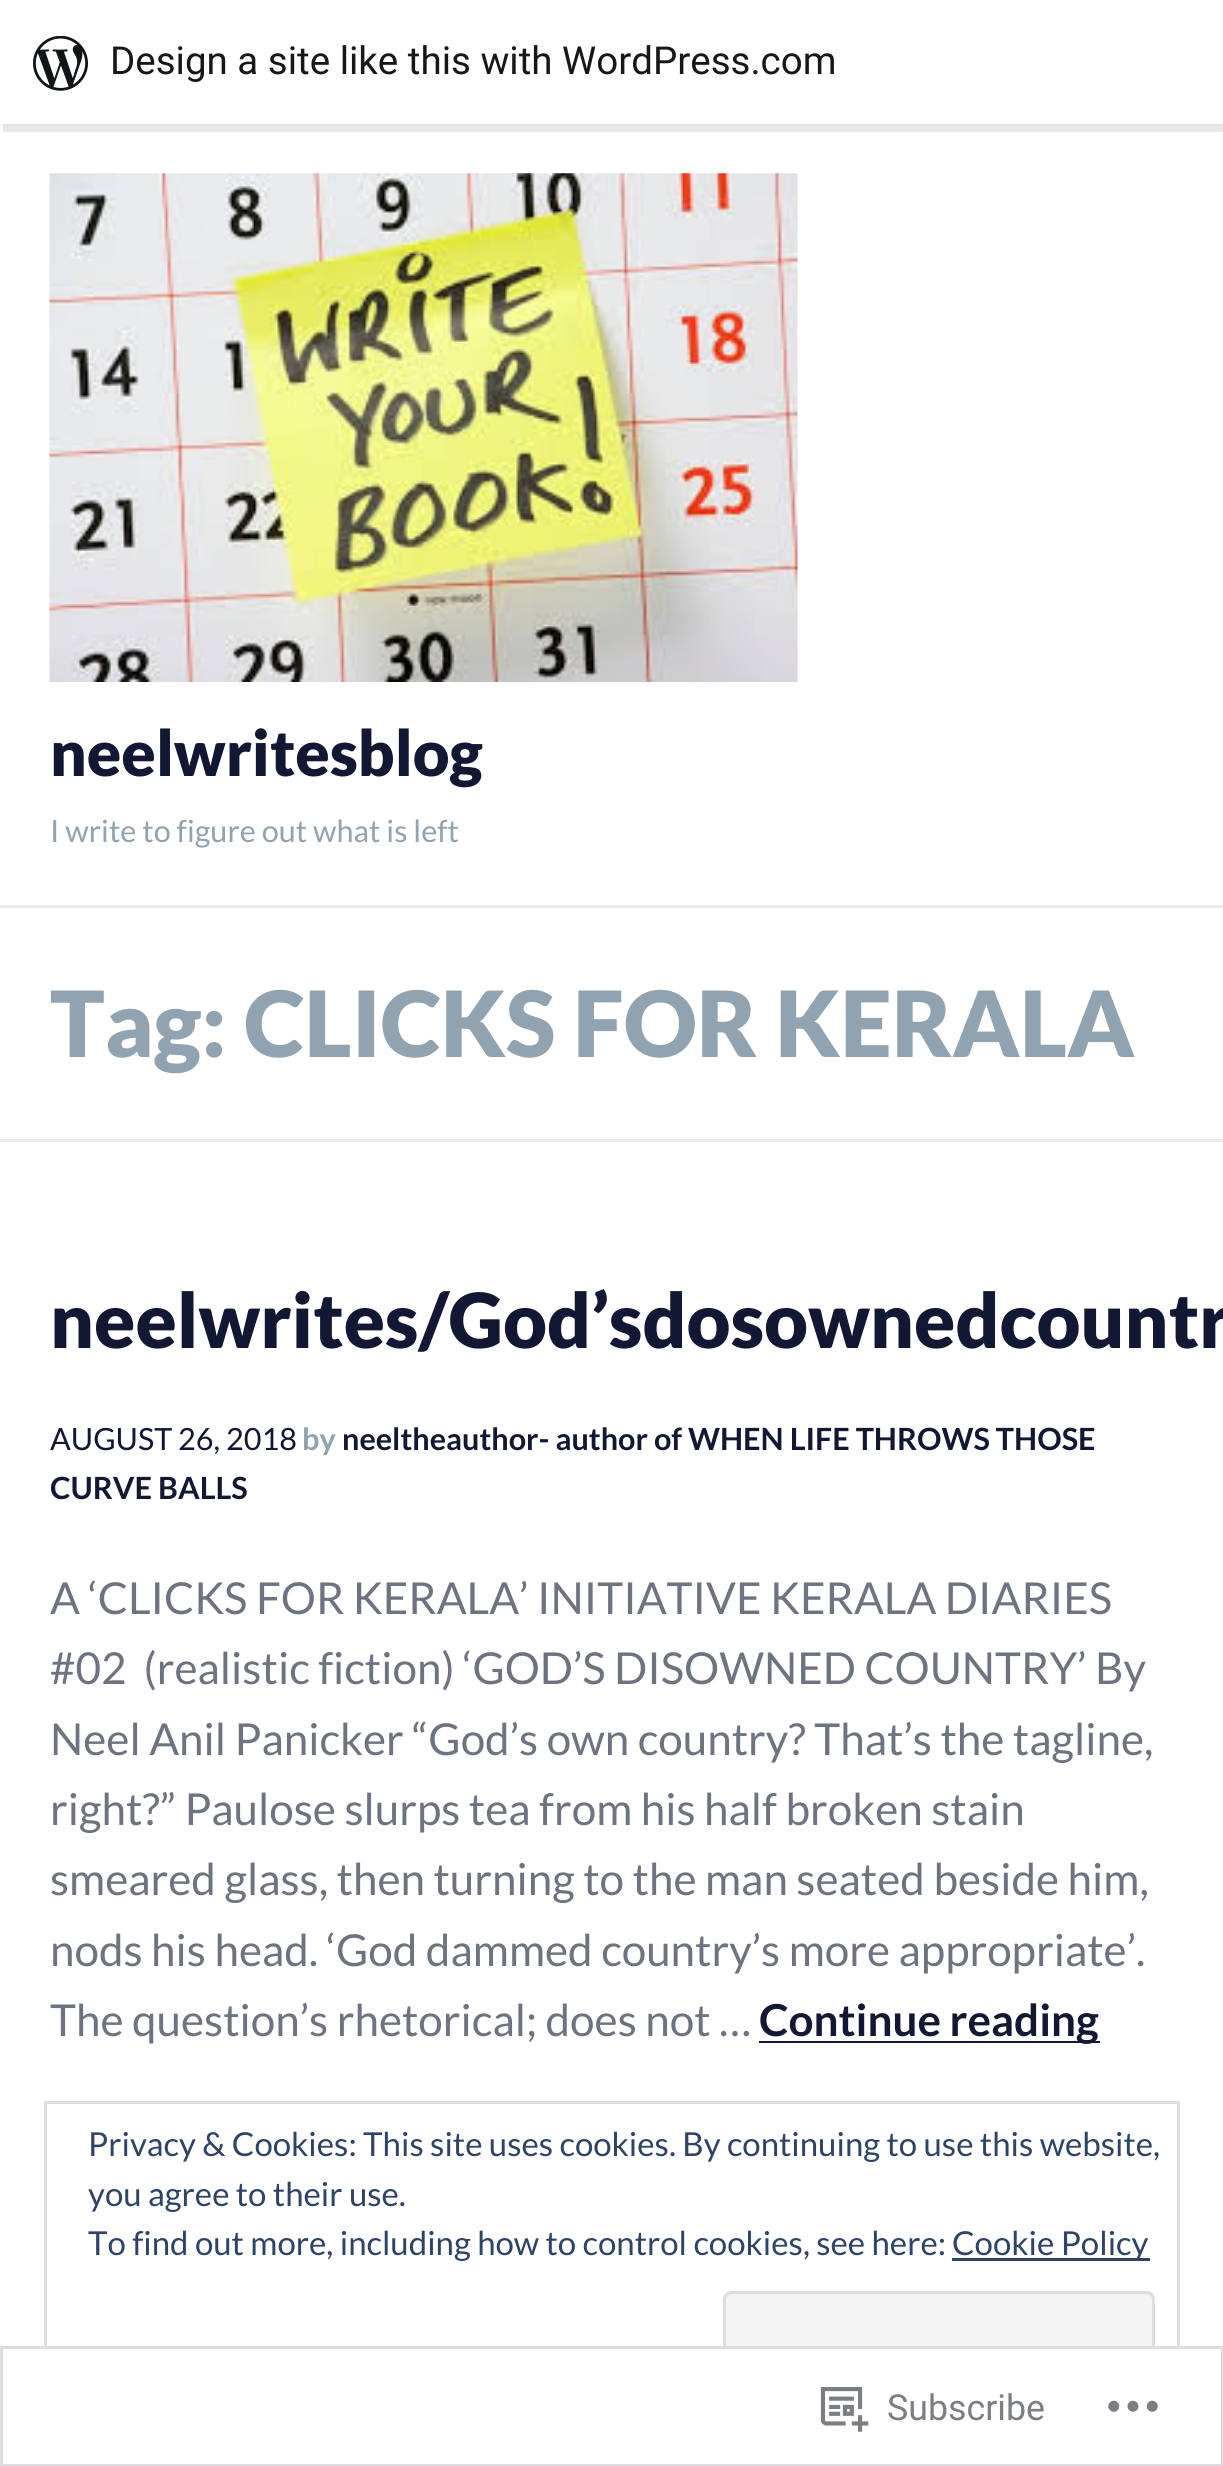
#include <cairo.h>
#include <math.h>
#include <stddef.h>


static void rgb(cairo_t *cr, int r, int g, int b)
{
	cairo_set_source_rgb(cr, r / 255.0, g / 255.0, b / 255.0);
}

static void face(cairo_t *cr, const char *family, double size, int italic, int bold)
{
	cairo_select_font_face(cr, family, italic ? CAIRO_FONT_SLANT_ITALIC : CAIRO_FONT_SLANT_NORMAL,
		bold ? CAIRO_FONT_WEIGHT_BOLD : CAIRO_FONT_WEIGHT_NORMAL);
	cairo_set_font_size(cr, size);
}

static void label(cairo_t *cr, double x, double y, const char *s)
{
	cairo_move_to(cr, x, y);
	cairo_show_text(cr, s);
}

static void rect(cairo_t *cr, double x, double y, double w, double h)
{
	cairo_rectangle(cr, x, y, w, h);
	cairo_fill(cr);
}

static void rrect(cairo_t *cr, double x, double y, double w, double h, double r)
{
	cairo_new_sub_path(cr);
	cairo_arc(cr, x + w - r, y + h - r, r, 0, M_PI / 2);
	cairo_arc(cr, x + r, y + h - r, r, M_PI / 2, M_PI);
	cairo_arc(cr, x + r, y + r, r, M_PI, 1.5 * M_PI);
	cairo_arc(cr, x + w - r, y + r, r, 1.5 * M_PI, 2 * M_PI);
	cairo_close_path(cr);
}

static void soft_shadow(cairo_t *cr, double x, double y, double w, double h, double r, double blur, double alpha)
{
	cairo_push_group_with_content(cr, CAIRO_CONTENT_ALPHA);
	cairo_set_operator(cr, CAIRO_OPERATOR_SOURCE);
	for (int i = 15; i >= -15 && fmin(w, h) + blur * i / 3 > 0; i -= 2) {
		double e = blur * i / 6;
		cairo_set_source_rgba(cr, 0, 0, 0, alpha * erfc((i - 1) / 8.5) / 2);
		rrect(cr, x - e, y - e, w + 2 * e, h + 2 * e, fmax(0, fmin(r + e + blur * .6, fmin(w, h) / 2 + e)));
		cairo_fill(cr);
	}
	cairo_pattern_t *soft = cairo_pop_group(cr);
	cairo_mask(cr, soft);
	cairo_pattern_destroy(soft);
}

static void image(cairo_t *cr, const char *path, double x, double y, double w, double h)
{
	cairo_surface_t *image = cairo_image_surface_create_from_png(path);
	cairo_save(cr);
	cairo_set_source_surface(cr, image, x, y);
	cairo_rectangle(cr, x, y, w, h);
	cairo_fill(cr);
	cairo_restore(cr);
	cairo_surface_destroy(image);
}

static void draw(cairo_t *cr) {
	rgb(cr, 255, 255, 255);
	cairo_paint(cr);
	rgb(cr, 0, 0, 0);
	soft_shadow(cr, 0, 3, 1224, 124, 0, 3, 0.05);
	cairo_set_source_rgba(cr, 0, 0, 0, 0.08);
	cairo_new_path(cr);
	cairo_move_to(cr, 3, 124);
	cairo_line_to(cr, 3, 132);
	cairo_line_to(cr, 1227, 132);
	cairo_line_to(cr, 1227, 8);
	cairo_line_to(cr, 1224, 8);
	cairo_line_to(cr, 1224, 124);
	cairo_close_path(cr);
	cairo_fill(cr);
	rgb(cr, 255, 255, 255);
	rect(cr, 0, 0, 1223, 124);
	image(cr, "image0.png", 33, 36, 55, 55);
	face(cr, "Roboto", 38.5, 0, 0);
	rgb(cr, 23, 23, 23);
	label(cr, 110, 74, "Design a site like this with WordPress.com");
	rgb(cr, 232, 236, 241);
	rect(cr, 0, 905, 1223, 3);
	image(cr, "image1.png", 49, 173, 749, 509);
	face(cr, "Lato Black", 63.5, 0, 0);
	rgb(cr, 18, 23, 51);
	label(cr, 50, 776, "neelwritesblog");
	face(cr, "Lato", 30.6, 0, 0);
	rgb(cr, 145, 163, 176);
	label(cr, 50, 842, "I write to figure out what is left");
	rgb(cr, 232, 236, 241);
	rect(cr, 0, 1139, 1223, 3);
	face(cr, "Lato Black", 91.25, 0, 0);
	rgb(cr, 145, 163, 176);
	label(cr, 50, 1057, "Tag: CLICKS FOR KERALA");
	face(cr, "Lato Black", 76, 0, 0);
	rgb(cr, 18, 23, 51);
	label(cr, 50, 1348, "neelwrites/God’sdosownedcountr");
	face(cr, "Lato", 30.6, 0, 0);
	label(cr, 50, 1450, "AUGUST 26, 2018");
	face(cr, "Lato", 30.6, 0, 1);
	rgb(cr, 145, 163, 176);
	label(cr, 302, 1450, "by");
	rgb(cr, 18, 23, 51);
	label(cr, 342, 1450, "neeltheauthor- author of WHEN LIFE THROWS THOSE");
	label(cr, 50, 1499, "CURVE BALLS");
	face(cr, "Lato", 44, 0, 0);
	rgb(cr, 110, 115, 129);
	label(cr, 50, 1614, "A ‘CLICKS FOR KERALA’ INITIATIVE KERALA DIARIES");
	label(cr, 50, 1684, "#02  (realistic fiction) ‘GOD’S DISOWNED COUNTRY’ By");
	label(cr, 50, 1755, "Neel Anil Panicker “God’s own country? That’s the tagline,");
	label(cr, 50, 1825, "right?” Paulose slurps tea from his half broken stain");
	label(cr, 50, 1895, "smeared glass, then turning to the man seated beside him,");
	label(cr, 50, 1966, "nods his head. ‘God dammed country’s more appropriate’.");
	label(cr, 50, 2036, "The question’s rhetorical; does not …");
	rgb(cr, 18, 23, 51);
	rect(cr, 759, 2041, 341, 2);
	face(cr, "Lato", 44, 0, 1);
	label(cr, 759, 2036, "Continue reading");
	cairo_rectangle(cr, 45.5, 2102.5, 1133, 319);
	rgb(cr, 222, 222, 222);
	cairo_set_line_width(cr, 3);
	cairo_stroke(cr);
	face(cr, "Lato", 33, 0, 0);
	rgb(cr, 46, 68, 103);
	label(cr, 88, 2156, "Privacy & Cookies: This site uses cookies. By continuing to use this website,");
	label(cr, 88, 2206, "you agree to their use.");
	label(cr, 88, 2255, "To find out more, including how to control cookies, see here:");
	rect(cr, 952, 2258, 198, 3);
	label(cr, 952, 2255, "Cookie Policy");
	rgb(cr, 243, 243, 243);
	rrect(cr, 724.5, 2292.5, 429, 104, 6.5);
	cairo_fill_preserve(cr);
	rgb(cr, 222, 222, 222);
	cairo_stroke(cr);
	cairo_set_source_rgba(cr, 1, 1, 1, 0.98);
	rect(cr, 44, 2346, 1136, 77);
	cairo_rectangle(cr, 1.5, 2347.5, 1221, 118);
	cairo_set_source_rgba(cr, 0.863, 0.863, 0.871, 0.98);
	cairo_stroke(cr);
	image(cr, "image2.png", 820, 2387, 49, 45);
	face(cr, "Roboto", 35.75, 0, 0);
	rgb(cr, 123, 127, 132);
	label(cr, 887, 2420, "Subscribe");
	image(cr, "image3.png", 1108, 2400, 50, 12);
}

int main(void) {
	cairo_surface_t *surface = cairo_image_surface_create(CAIRO_FORMAT_RGB24, 1223, 2466);
	cairo_t *cr = cairo_create(surface);
	cairo_font_options_t *options = cairo_font_options_create();
	cairo_font_options_set_hint_metrics(options, CAIRO_HINT_METRICS_OFF);
	cairo_font_options_set_hint_style(options, CAIRO_HINT_STYLE_NONE);
	cairo_set_font_options(cr, options);
	cairo_set_miter_limit(cr, 4);
	draw(cr);
	cairo_surface_write_to_png(surface, "render.png");
	cairo_font_options_destroy(options);
	cairo_destroy(cr);
	cairo_surface_destroy(surface);
	return 0;
}
